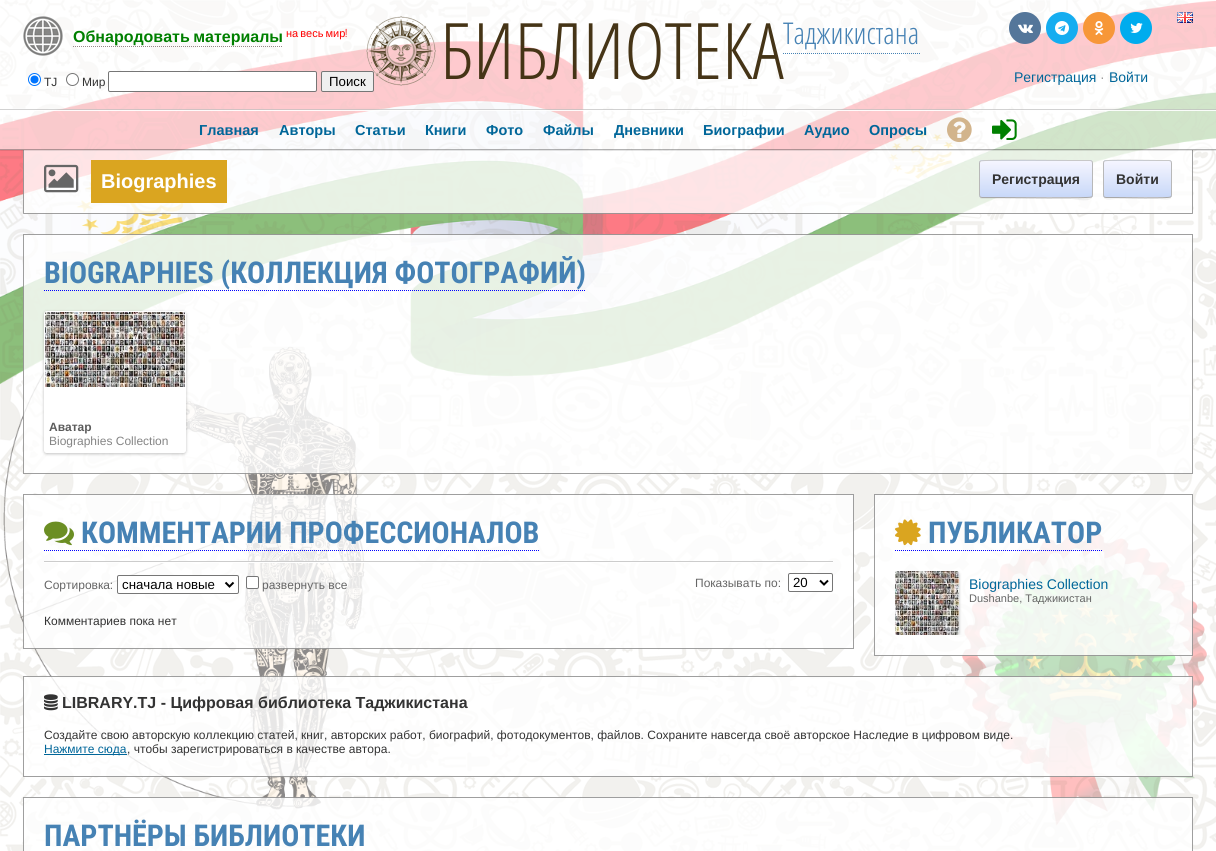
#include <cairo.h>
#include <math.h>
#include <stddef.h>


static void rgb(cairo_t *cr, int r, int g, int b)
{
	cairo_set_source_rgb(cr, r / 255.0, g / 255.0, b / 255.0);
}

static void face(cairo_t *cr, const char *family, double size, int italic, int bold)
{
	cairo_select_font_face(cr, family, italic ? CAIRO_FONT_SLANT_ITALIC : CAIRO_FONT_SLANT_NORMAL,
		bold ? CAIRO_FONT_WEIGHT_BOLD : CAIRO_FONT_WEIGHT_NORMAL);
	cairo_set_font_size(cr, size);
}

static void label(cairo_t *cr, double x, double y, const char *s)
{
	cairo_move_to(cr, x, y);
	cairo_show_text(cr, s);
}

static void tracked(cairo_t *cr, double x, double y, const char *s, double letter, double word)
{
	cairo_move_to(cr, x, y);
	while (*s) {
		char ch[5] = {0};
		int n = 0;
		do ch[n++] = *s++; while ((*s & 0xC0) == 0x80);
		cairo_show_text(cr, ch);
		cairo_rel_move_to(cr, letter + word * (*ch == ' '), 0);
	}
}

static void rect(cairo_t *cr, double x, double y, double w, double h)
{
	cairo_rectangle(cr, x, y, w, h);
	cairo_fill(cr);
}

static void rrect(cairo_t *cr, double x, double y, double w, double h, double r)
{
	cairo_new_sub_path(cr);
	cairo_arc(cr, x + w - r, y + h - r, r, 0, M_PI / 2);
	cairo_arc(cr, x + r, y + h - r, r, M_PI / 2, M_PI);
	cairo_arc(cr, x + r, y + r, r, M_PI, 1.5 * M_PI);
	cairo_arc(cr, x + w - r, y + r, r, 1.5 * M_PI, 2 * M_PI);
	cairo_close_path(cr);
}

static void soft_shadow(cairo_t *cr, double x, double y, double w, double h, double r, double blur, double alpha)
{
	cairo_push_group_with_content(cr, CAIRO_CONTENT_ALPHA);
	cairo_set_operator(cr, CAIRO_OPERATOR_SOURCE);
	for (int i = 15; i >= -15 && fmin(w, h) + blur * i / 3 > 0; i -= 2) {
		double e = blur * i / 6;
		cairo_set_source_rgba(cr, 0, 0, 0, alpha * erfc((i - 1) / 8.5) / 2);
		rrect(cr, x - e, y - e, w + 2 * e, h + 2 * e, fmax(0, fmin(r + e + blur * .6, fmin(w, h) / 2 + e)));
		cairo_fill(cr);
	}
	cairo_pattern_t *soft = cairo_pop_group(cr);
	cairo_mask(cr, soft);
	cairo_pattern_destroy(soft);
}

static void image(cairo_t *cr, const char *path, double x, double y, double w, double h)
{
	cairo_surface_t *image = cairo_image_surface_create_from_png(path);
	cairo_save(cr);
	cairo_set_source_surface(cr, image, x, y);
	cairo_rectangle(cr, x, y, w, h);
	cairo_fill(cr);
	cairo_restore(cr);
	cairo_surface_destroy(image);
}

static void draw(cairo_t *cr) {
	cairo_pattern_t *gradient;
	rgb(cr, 255, 255, 255);
	cairo_paint(cr);
	image(cr, "image0.png", 0, 0, 1216, 826);
	image(cr, "image1.png", 0, 0, 1216, 851);
	cairo_set_source_rgba(cr, 1, 1, 1, 0.8);
	rect(cr, 23, 150, 1170, 64);
	cairo_set_source_rgba(cr, 0.251, 0.251, 0.251, 0.5);
	cairo_new_path(cr);
	cairo_move_to(cr, 1193, 150);
	cairo_line_to(cr, 1193, 214);
	cairo_line_to(cr, 1192, 213);
	cairo_line_to(cr, 1192, 150);
	cairo_close_path(cr);
	cairo_fill(cr);
	cairo_new_path(cr);
	cairo_move_to(cr, 1193, 214);
	cairo_line_to(cr, 23, 214);
	cairo_line_to(cr, 24, 213);
	cairo_line_to(cr, 1192, 213);
	cairo_close_path(cr);
	cairo_fill(cr);
	cairo_new_path(cr);
	cairo_move_to(cr, 23, 214);
	cairo_line_to(cr, 23, 150);
	cairo_line_to(cr, 24, 150);
	cairo_line_to(cr, 24, 213);
	cairo_close_path(cr);
	cairo_fill(cr);
	cairo_save(cr);
	cairo_rectangle(cr, 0, 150, 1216, 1);
	cairo_clip(cr);
	rgb(cr, 51, 51, 51);
	soft_shadow(cr, 0, 111, 1216, 40, 0, 0.5, 0.15);
	cairo_restore(cr);
	cairo_set_source_rgba(cr, 1, 1, 1, 0.6);
	rect(cr, 0, 0, 1216, 110);
	cairo_set_source_rgba(cr, 0.753, 0.753, 0.753, 0.7);
	rect(cr, 0, 109, 1216, 1);
	rgb(cr, 255, 255, 255);
	cairo_arc(cr, 34.5, 79.5, 6, 0, 2 * M_PI);
	cairo_fill_preserve(cr);
	rgb(cr, 0, 117, 255);
	cairo_set_line_width(cr, 1);
	cairo_stroke(cr);
	cairo_arc(cr, 34.5, 79.5, 4, 0, 2 * M_PI);
	cairo_fill(cr);
	face(cr, "Liberation Sans", 12, 0, 0);
	rgb(cr, 51, 51, 51);
	label(cr, 44, 86, "TJ");
	rgb(cr, 255, 255, 255);
	cairo_new_path(cr);
	cairo_arc(cr, 72.5, 79.5, 6, 0, 2 * M_PI);
	cairo_fill_preserve(cr);
	rgb(cr, 118, 118, 118);
	cairo_stroke(cr);
	rgb(cr, 51, 51, 51);
	label(cr, 82, 86, "Мир");
	rgb(cr, 255, 255, 255);
	rrect(cr, 108.5, 71.5, 208, 20, 1.5);
	cairo_fill_preserve(cr);
	rgb(cr, 118, 118, 118);
	cairo_stroke(cr);
	image(cr, "image2.png", 366, 16, 70, 70);
	rgb(cr, 239, 239, 239);
	rrect(cr, 321.5, 71.5, 52, 20, 1.5);
	cairo_fill_preserve(cr);
	rgb(cr, 118, 118, 118);
	cairo_stroke(cr);
	face(cr, "Liberation Sans", 13.25, 0, 0);
	rgb(cr, 0, 0, 0);
	label(cr, 329, 86, "Поиск");
	face(cr, "Open Sans Condensed Light", 78, 0, 0);
	rgb(cr, 69, 52, 22);
	label(cr, 440, 79, "БИБЛИОТЕКА");
	face(cr, "Open Sans Condensed Light", 30, 0, 0);
	rgb(cr, 70, 130, 180);
	label(cr, 783, 44, "Таджикистана");
	cairo_new_path(cr);
	cairo_move_to(cr, 783, 53.5);
	cairo_line_to(cr, 920, 53.5);
	cairo_set_dash(cr, (double[]){1, 1}, 2, 0);
	cairo_stroke(cr);
	rgb(cr, 84, 118, 154);
	cairo_arc(cr, 1025, 28, 16, 0, 2 * M_PI);
	cairo_fill(cr);
	image(cr, "image3.png", 1018, 24, 15, 9);
	rgb(cr, 21, 173, 240);
	cairo_arc(cr, 1062, 28, 16, 0, 2 * M_PI);
	cairo_fill(cr);
	image(cr, "image4.png", 1055, 21, 14, 14);
	rgb(cr, 247, 151, 56);
	cairo_arc(cr, 1099, 28, 16, 0, 2 * M_PI);
	cairo_fill(cr);
	image(cr, "image5.png", 1094, 21, 10, 14);
	rgb(cr, 0, 172, 238);
	cairo_arc(cr, 1136, 28, 16, 0, 2 * M_PI);
	cairo_fill(cr);
	image(cr, "image6.png", 1130, 23, 13, 10);
	image(cr, "image7.png", 1177, 12, 16, 11);
	face(cr, "Liberation Sans", 14, 0, 0);
	rgb(cr, 0, 102, 153);
	label(cr, 1014, 82, "Регистрация");
	rgb(cr, 153, 153, 153);
	label(cr, 1100, 82, "·");
	rgb(cr, 0, 102, 153);
	label(cr, 1109, 82, "Войти");
	image(cr, "image8.png", 23, 16, 40, 40);
	face(cr, "Liberation Sans", 16, 0, 1);
	rgb(cr, 0, 128, 0);
	tracked(cr, 73, 42, "Обнародовать материалы", 0, -1);
	cairo_new_path(cr);
	cairo_move_to(cr, 73, 46.5);
	cairo_line_to(cr, 283, 46.5);
	rgb(cr, 152, 137, 137);
	cairo_stroke(cr);
	face(cr, "Liberation Sans", 11, 0, 0);
	rgb(cr, 255, 0, 0);
	tracked(cr, 286, 37, "на весь мир", 0, -1);
	face(cr, "Dosis", 11, 0, 0);
	label(cr, 345, 37, "!");
	cairo_set_source_rgba(cr, 1, 1, 1, 0.6);
	rect(cr, 0, 110, 1216, 40);
	cairo_set_source_rgba(cr, 1, 1, 1, 0.9);
	rect(cr, 35, 110, 1181, 1);
	cairo_set_source_rgba(cr, 0.251, 0.251, 0.251, 0.4);
	rect(cr, 0, 149, 1216, 1);
	face(cr, "Liberation Sans", 14.5, 0, 1);
	rgb(cr, 0, 102, 153);
	label(cr, 199, 135, "Главная");
	label(cr, 279, 135, "Авторы");
	label(cr, 355, 135, "Статьи");
	label(cr, 425, 135, "Книги");
	label(cr, 486, 135, "Фото");
	label(cr, 543, 135, "Файлы");
	label(cr, 614, 135, "Дневники");
	label(cr, 703, 135, "Биографии");
	label(cr, 804, 135, "Аудио");
	label(cr, 869, 135, "Опросы");
	image(cr, "image9.png", 947, 117, 25, 26);
	image(cr, "image10.png", 992, 119, 25, 21);
	image(cr, "image11.png", 44, 164, 35, 29);
	rgb(cr, 218, 165, 32);
	rect(cr, 91, 160, 136, 43);
	face(cr, "Liberation Sans", 20, 0, 1);
	rgb(cr, 255, 255, 255);
	label(cr, 101, 188, "Biographies");
	cairo_set_source_rgba(cr, 0.502, 0.502, 0.502, 0.1);
	cairo_new_path(cr);
	cairo_move_to(cr, 979, 195);
	cairo_curve_to(cr, 979, 197, 980, 199, 982, 199);
	cairo_line_to(cr, 1072, 199);
	cairo_curve_to(cr, 1074, 199, 1093, 204, 1093, 195);
	cairo_line_to(cr, 1092, 197);
	cairo_line_to(cr, 1090, 198);
	cairo_line_to(cr, 982, 198);
	cairo_curve_to(cr, 980, 198, 979, 197, 979, 195);
	cairo_close_path(cr);
	cairo_fill(cr);
	cairo_save(cr);
	rrect(cr, 979, 160, 114, 38, 3);
	cairo_clip(cr);
	gradient = cairo_pattern_create_linear(1036, 125, 1036, 161);
	cairo_pattern_add_color_stop_rgba(gradient, 0, 0.961, 0.961, 1, 1);
	cairo_pattern_add_color_stop_rgba(gradient, 1, 0.784, 0.847, 0.973, 1);
	cairo_set_source(cr, gradient);
	cairo_pattern_destroy(gradient);
	rect(cr, 979, 160, 114, 1);
	gradient = cairo_pattern_create_linear(1036, 161, 1036, 197);
	cairo_pattern_add_color_stop_rgba(gradient, 0, 0.961, 0.961, 1, 1);
	cairo_pattern_add_color_stop_rgba(gradient, 1, 0.784, 0.847, 0.973, 1);
	cairo_set_source(cr, gradient);
	cairo_pattern_destroy(gradient);
	rect(cr, 979, 161, 114, 36);
	gradient = cairo_pattern_create_linear(1036, 197, 1036, 233);
	cairo_pattern_add_color_stop_rgba(gradient, 0, 0.961, 0.961, 1, 1);
	cairo_pattern_add_color_stop_rgba(gradient, 1, 0.784, 0.847, 0.973, 1);
	cairo_set_source(cr, gradient);
	cairo_pattern_destroy(gradient);
	rect(cr, 979, 197, 114, 1);
	cairo_restore(cr);
	cairo_new_path(cr);
	cairo_move_to(cr, 980, 161);
	cairo_line_to(cr, 980.5, 161);
	cairo_curve_to(cr, 982.5, 159.5, 1063, 160.5, 1072, 160.5);
	cairo_line_to(cr, 1090, 160.5);
	cairo_line_to(cr, 1092, 161);
	rgb(cr, 200, 200, 200);
	cairo_set_dash(cr, NULL, 0, 0);
	cairo_stroke(cr);
	cairo_new_path(cr);
	cairo_move_to(cr, 1092, 161);
	cairo_curve_to(cr, 1092, 161.5, 1092.5, 162.5, 1092.5, 163);
	cairo_line_to(cr, 1092.5, 195);
	cairo_curve_to(cr, 1092.5, 195.5, 1092, 196.5, 1092, 197);
	rgb(cr, 184, 184, 184);
	cairo_stroke(cr);
	cairo_new_path(cr);
	cairo_move_to(cr, 1092, 197);
	cairo_line_to(cr, 1091.5, 197);
	cairo_curve_to(cr, 1089.5, 198.5, 1009, 197.5, 1000, 197.5);
	cairo_line_to(cr, 982, 197.5);
	cairo_line_to(cr, 980, 197);
	rgb(cr, 168, 168, 168);
	cairo_stroke(cr);
	cairo_new_path(cr);
	cairo_move_to(cr, 980, 197);
	cairo_curve_to(cr, 980, 196.5, 979.5, 195.5, 979.5, 195);
	cairo_line_to(cr, 979.5, 163);
	cairo_curve_to(cr, 979.5, 162.5, 980, 161.5, 980, 161);
	rgb(cr, 184, 184, 184);
	cairo_stroke(cr);
	face(cr, "Liberation Sans", 14, 0, 1);
	rgb(cr, 51, 51, 51);
	label(cr, 992, 184, "Регистрация");
	cairo_set_source_rgba(cr, 0.502, 0.502, 0.502, 0.1);
	cairo_new_path(cr);
	cairo_move_to(cr, 1103, 195);
	cairo_curve_to(cr, 1103, 202, 1112, 199, 1116, 199);
	cairo_line_to(cr, 1158, 199);
	cairo_curve_to(cr, 1163, 199, 1172, 202, 1172, 195);
	cairo_curve_to(cr, 1172, 197, 1171, 198, 1169, 198);
	cairo_line_to(cr, 1106, 198);
	cairo_curve_to(cr, 1104, 198, 1103, 197, 1103, 195);
	cairo_close_path(cr);
	cairo_fill(cr);
	cairo_save(cr);
	rrect(cr, 1103, 160, 69, 38, 3);
	cairo_clip(cr);
	gradient = cairo_pattern_create_linear(1138, 125, 1138, 161);
	cairo_pattern_add_color_stop_rgba(gradient, 0, 0.961, 0.961, 1, 1);
	cairo_pattern_add_color_stop_rgba(gradient, 1, 0.784, 0.847, 0.973, 1);
	cairo_set_source(cr, gradient);
	cairo_pattern_destroy(gradient);
	rect(cr, 1103, 160, 69, 1);
	gradient = cairo_pattern_create_linear(1138, 161, 1138, 197);
	cairo_pattern_add_color_stop_rgba(gradient, 0, 0.961, 0.961, 1, 1);
	cairo_pattern_add_color_stop_rgba(gradient, 1, 0.784, 0.847, 0.973, 1);
	cairo_set_source(cr, gradient);
	cairo_pattern_destroy(gradient);
	rect(cr, 1103, 161, 69, 36);
	gradient = cairo_pattern_create_linear(1138, 197, 1138, 233);
	cairo_pattern_add_color_stop_rgba(gradient, 0, 0.961, 0.961, 1, 1);
	cairo_pattern_add_color_stop_rgba(gradient, 1, 0.784, 0.847, 0.973, 1);
	cairo_set_source(cr, gradient);
	cairo_pattern_destroy(gradient);
	rect(cr, 1103, 197, 69, 1);
	cairo_restore(cr);
	cairo_new_path(cr);
	cairo_move_to(cr, 1104, 161);
	cairo_line_to(cr, 1104.5, 161);
	cairo_curve_to(cr, 1106.5, 159.5, 1152.5, 160.5, 1158.5, 160.5);
	cairo_line_to(cr, 1169, 160.5);
	cairo_line_to(cr, 1171, 161);
	rgb(cr, 200, 200, 200);
	cairo_stroke(cr);
	cairo_new_path(cr);
	cairo_move_to(cr, 1171, 161);
	cairo_curve_to(cr, 1171, 161.5, 1171.5, 162.5, 1171.5, 163);
	cairo_line_to(cr, 1171.5, 195);
	cairo_curve_to(cr, 1171.5, 195.5, 1171, 196.5, 1171, 197);
	rgb(cr, 184, 184, 184);
	cairo_stroke(cr);
	cairo_new_path(cr);
	cairo_move_to(cr, 1171, 197);
	cairo_line_to(cr, 1170.5, 197);
	cairo_curve_to(cr, 1168.5, 198.5, 1122.5, 197.5, 1116.5, 197.5);
	cairo_line_to(cr, 1106, 197.5);
	cairo_line_to(cr, 1104, 197);
	rgb(cr, 168, 168, 168);
	cairo_stroke(cr);
	cairo_new_path(cr);
	cairo_move_to(cr, 1104, 197);
	cairo_curve_to(cr, 1104, 196.5, 1103.5, 195.5, 1103.5, 195);
	cairo_line_to(cr, 1103.5, 163);
	cairo_curve_to(cr, 1103.5, 162.5, 1104, 161.5, 1104, 161);
	rgb(cr, 184, 184, 184);
	cairo_stroke(cr);
	rgb(cr, 51, 51, 51);
	label(cr, 1116, 184, "Войти");
	cairo_set_source_rgba(cr, 1, 1, 1, 0.8);
	rect(cr, 23, 234, 1170, 240);
	cairo_rectangle(cr, 23.5, 234.5, 1169, 239);
	cairo_set_source_rgba(cr, 0.251, 0.251, 0.251, 0.5);
	cairo_stroke(cr);
	cairo_new_path(cr);
	cairo_move_to(cr, 44, 290.5);
	cairo_line_to(cr, 586, 290.5);
	rgb(cr, 0, 0, 255);
	cairo_set_dash(cr, (double[]){1, 1}, 2, 0);
	cairo_stroke(cr);
	face(cr, "Roboto Condensed", 30, 0, 1);
	rgb(cr, 70, 130, 180);
	label(cr, 44, 283, "BIOGRAPHIES (КОЛЛЕКЦИЯ ФОТОГРАФИЙ)");
	rgb(cr, 51, 51, 51);
	soft_shadow(cr, 44, 312, 142, 142, 3, 1.5, 0.3);
	rgb(cr, 255, 255, 255);
	rrect(cr, 44, 311, 142, 142, 3);
	cairo_fill(cr);
	image(cr, "image12.png", 45, 312, 140, 75);
	cairo_set_source_rgba(cr, 1, 1, 1, 0.8);
	cairo_new_path(cr);
	cairo_move_to(cr, 44, 415);
	cairo_line_to(cr, 186, 415);
	cairo_line_to(cr, 186, 450);
	cairo_curve_to(cr, 186, 451.5, 184.5, 453, 183, 453);
	cairo_line_to(cr, 47, 453);
	cairo_curve_to(cr, 45.5, 453, 44, 451.5, 44, 450);
	cairo_close_path(cr);
	cairo_fill(cr);
	face(cr, "Liberation Sans", 12, 0, 1);
	rgb(cr, 92, 92, 92);
	label(cr, 49, 431, "Аватар");
	face(cr, "Liberation Sans", 12, 0, 0);
	rgb(cr, 133, 133, 133);
	label(cr, 49, 445, "Biographies Collection");
	cairo_set_source_rgba(cr, 1, 1, 1, 0.8);
	rect(cr, 23, 494, 831, 155);
	cairo_rectangle(cr, 23.5, 494.5, 830, 154);
	cairo_set_source_rgba(cr, 0.251, 0.251, 0.251, 0.5);
	cairo_set_dash(cr, NULL, 0, 0);
	cairo_stroke(cr);
	cairo_new_path(cr);
	cairo_move_to(cr, 44, 550.5);
	cairo_line_to(cr, 539, 550.5);
	rgb(cr, 0, 0, 255);
	cairo_set_dash(cr, (double[]){1, 1}, 2, 0);
	cairo_stroke(cr);
	image(cr, "image13.png", 44, 521, 30, 25);
	face(cr, "Roboto Condensed", 30, 0, 1);
	rgb(cr, 70, 130, 180);
	label(cr, 81, 543, "КОММЕНТАРИИ ПРОФЕССИОНАЛОВ");
	rgb(cr, 204, 204, 204);
	rect(cr, 44, 561, 789, 1);
	rgb(cr, 255, 255, 255);
	rect(cr, 44, 562, 789, 1);
	face(cr, "Liberation Sans", 12, 0, 0);
	rgb(cr, 102, 102, 102);
	label(cr, 44, 589, "Сортировка:");
	rgb(cr, 255, 255, 255);
	rrect(cr, 117.5, 575.5, 121, 18, 1.5);
	cairo_fill_preserve(cr);
	rgb(cr, 118, 118, 118);
	cairo_set_dash(cr, NULL, 0, 0);
	cairo_stroke(cr);
	cairo_new_path(cr);
	cairo_move_to(cr, 225.5, 582.5);
	cairo_line_to(cr, 229.5, 586.5);
	cairo_line_to(cr, 233.5, 582.5);
	rgb(cr, 0, 0, 0);
	cairo_set_line_width(cr, 2);
	cairo_stroke(cr);
	face(cr, "Liberation Sans", 13.25, 0, 0);
	label(cr, 122, 589, "сначала новые");
	rgb(cr, 255, 255, 255);
	rrect(cr, 246.5, 576.5, 12, 12, 1.5);
	cairo_fill_preserve(cr);
	rgb(cr, 118, 118, 118);
	cairo_set_line_width(cr, 1);
	cairo_stroke(cr);
	face(cr, "Liberation Sans", 12, 0, 0);
	rgb(cr, 102, 102, 102);
	label(cr, 262, 589, "развернуть все");
	label(cr, 695, 587, "Показывать по:");
	rgb(cr, 255, 255, 255);
	rrect(cr, 788.5, 573.5, 44, 18, 1.5);
	cairo_fill_preserve(cr);
	rgb(cr, 118, 118, 118);
	cairo_stroke(cr);
	cairo_new_path(cr);
	cairo_move_to(cr, 820, 580.5);
	cairo_line_to(cr, 824, 584.5);
	cairo_line_to(cr, 828, 580.5);
	rgb(cr, 0, 0, 0);
	cairo_set_line_width(cr, 2);
	cairo_stroke(cr);
	face(cr, "Liberation Sans", 13.25, 0, 0);
	label(cr, 793, 587, "20");
	face(cr, "Liberation Sans", 12, 0, 0);
	rgb(cr, 51, 51, 51);
	label(cr, 44, 625, "Комментариев пока нет");
	cairo_set_source_rgba(cr, 1, 1, 1, 0.8);
	rect(cr, 874, 494, 319, 162);
	cairo_rectangle(cr, 874.5, 494.5, 318, 161);
	cairo_set_source_rgba(cr, 0.251, 0.251, 0.251, 0.5);
	cairo_set_line_width(cr, 1);
	cairo_stroke(cr);
	cairo_new_path(cr);
	cairo_move_to(cr, 895, 550.5);
	cairo_line_to(cr, 1102, 550.5);
	rgb(cr, 0, 0, 255);
	cairo_set_dash(cr, (double[]){1, 1}, 2, 0);
	cairo_stroke(cr);
	image(cr, "image14.png", 895, 519, 26, 27);
	face(cr, "Roboto Condensed", 30, 0, 1);
	rgb(cr, 70, 130, 180);
	label(cr, 928, 543, "ПУБЛИКАТОР");
	cairo_save(cr);
	cairo_rectangle(cr, 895, 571, 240, 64);
	cairo_clip(cr);
	rgb(cr, 51, 51, 51);
	soft_shadow(cr, 895, 572, 64, 64, 3, 1.5, 0.3);
	cairo_restore(cr);
	image(cr, "image15.png", 895, 571, 64, 64);
	face(cr, "Liberation Sans", 14, 0, 0);
	rgb(cr, 0, 102, 153);
	label(cr, 969, 589, "Biographies Collection");
	cairo_save(cr);
	cairo_rectangle(cr, 959, 571, 176, 33);
	cairo_clip(cr);
	face(cr, "Liberation Sans", 11, 0, 0);
	rgb(cr, 102, 102, 102);
	label(cr, 969, 602, "Dushanbe, Таджикистан");
	cairo_restore(cr);
	cairo_set_source_rgba(cr, 1, 1, 1, 0.8);
	rect(cr, 23, 676, 1170, 101);
	cairo_rectangle(cr, 23.5, 676.5, 1169, 100);
	cairo_set_source_rgba(cr, 0.251, 0.251, 0.251, 0.5);
	cairo_set_dash(cr, NULL, 0, 0);
	cairo_stroke(cr);
	image(cr, "image16.png", 44, 694, 14, 17);
	face(cr, "Liberation Sans", 16, 0, 1);
	rgb(cr, 51, 51, 51);
	label(cr, 62, 708, "LIBRARY.TJ - Цифровая библиотека Таджикистана");
	face(cr, "Liberation Sans", 12, 0, 0);
	label(cr, 44, 739, "Создайте свою авторскую коллекцию статей, книг, авторских работ, биографий, фотодокументов, файлов. Сохраните навсегда своё авторское Наследие в цифровом виде.");
	rgb(cr, 0, 102, 153);
	rect(cr, 44, 754, 83, 1);
	label(cr, 44, 753, "Нажмите сюда");
	rgb(cr, 51, 51, 51);
	label(cr, 127, 753, ", чтобы зарегистрироваться в качестве автора.");
	cairo_set_source_rgba(cr, 1, 1, 1, 0.8);
	rect(cr, 23, 797, 1170, 54);
	cairo_rectangle(cr, 23.5, 797.5, 1169, 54);
	cairo_set_source_rgba(cr, 0.251, 0.251, 0.251, 0.5);
	cairo_stroke(cr);
	face(cr, "Roboto Condensed", 30, 0, 1);
	rgb(cr, 70, 130, 180);
	label(cr, 44, 846, "ПАРТНЁРЫ БИБЛИОТЕКИ");
}

int main(void) {
	cairo_surface_t *surface = cairo_image_surface_create(CAIRO_FORMAT_RGB24, 1216, 851);
	cairo_t *cr = cairo_create(surface);
	cairo_font_options_t *options = cairo_font_options_create();
	cairo_font_options_set_hint_metrics(options, CAIRO_HINT_METRICS_OFF);
	cairo_font_options_set_hint_style(options, CAIRO_HINT_STYLE_NONE);
	cairo_set_font_options(cr, options);
	cairo_set_miter_limit(cr, 4);
	draw(cr);
	cairo_surface_write_to_png(surface, "render.png");
	cairo_font_options_destroy(options);
	cairo_destroy(cr);
	cairo_surface_destroy(surface);
	return 0;
}
